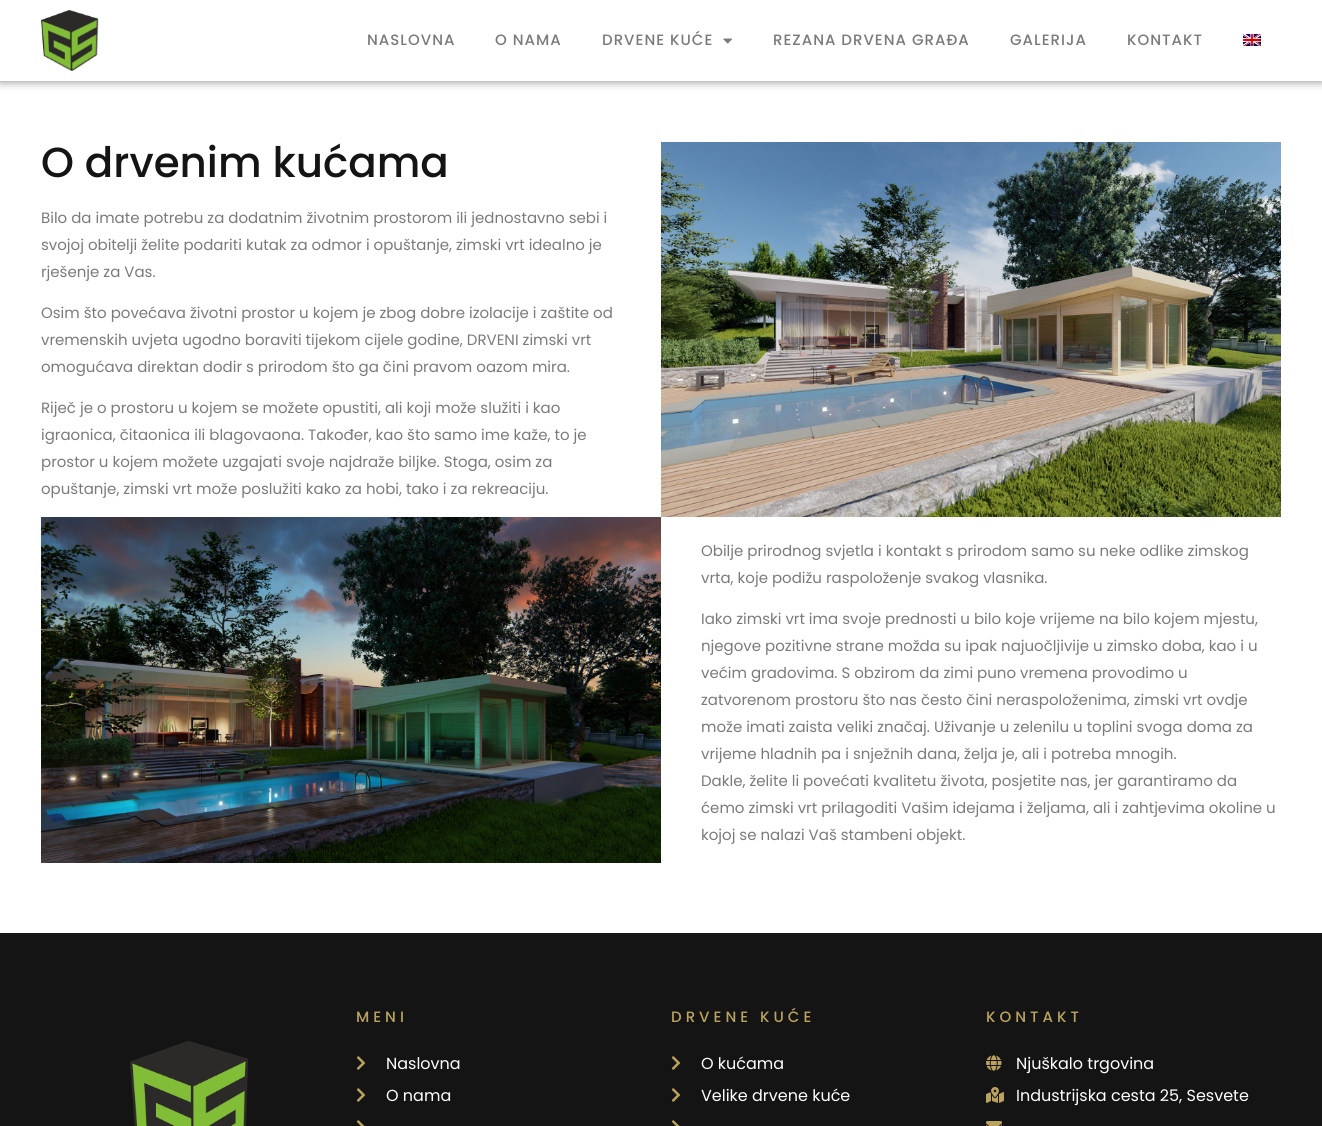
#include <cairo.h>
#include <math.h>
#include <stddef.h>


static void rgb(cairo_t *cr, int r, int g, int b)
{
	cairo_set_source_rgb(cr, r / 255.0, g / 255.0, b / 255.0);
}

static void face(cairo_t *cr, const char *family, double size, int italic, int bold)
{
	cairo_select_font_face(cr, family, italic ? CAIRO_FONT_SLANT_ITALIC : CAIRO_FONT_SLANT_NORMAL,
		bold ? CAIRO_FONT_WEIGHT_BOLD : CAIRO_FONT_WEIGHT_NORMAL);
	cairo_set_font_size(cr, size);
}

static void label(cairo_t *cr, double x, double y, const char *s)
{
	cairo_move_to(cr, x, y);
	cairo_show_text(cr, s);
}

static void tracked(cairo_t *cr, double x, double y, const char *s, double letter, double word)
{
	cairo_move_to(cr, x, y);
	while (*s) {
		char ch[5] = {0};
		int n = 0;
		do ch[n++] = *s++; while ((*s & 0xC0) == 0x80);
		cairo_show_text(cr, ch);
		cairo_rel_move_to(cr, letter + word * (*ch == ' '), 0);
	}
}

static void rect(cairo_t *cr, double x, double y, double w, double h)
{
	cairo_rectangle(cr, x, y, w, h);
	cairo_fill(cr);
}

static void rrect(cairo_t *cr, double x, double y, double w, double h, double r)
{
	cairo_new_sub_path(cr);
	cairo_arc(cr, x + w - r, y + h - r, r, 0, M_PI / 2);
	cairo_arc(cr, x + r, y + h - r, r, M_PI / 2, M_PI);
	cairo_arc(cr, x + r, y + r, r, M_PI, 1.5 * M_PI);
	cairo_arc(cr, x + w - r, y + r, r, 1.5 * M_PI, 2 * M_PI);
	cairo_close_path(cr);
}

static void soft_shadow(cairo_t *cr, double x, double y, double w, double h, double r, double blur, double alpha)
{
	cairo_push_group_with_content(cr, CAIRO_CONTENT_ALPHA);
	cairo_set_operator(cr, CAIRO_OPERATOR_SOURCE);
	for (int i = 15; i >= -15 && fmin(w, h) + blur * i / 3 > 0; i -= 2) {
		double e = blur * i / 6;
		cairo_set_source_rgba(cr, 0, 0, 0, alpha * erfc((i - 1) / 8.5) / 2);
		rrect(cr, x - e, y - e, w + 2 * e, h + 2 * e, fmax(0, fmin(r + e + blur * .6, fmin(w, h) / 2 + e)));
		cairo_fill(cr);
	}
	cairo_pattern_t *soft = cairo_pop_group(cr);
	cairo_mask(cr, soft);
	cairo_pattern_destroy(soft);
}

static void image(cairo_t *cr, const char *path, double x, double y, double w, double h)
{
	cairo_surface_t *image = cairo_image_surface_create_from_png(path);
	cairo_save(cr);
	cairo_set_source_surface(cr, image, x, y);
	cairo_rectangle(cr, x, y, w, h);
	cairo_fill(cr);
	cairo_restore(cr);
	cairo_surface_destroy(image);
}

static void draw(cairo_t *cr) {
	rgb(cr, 255, 255, 255);
	cairo_paint(cr);
	rgb(cr, 0, 0, 0);
	soft_shadow(cr, 0, 0, 1322, 81, 0, 5, 0.5);
	rgb(cr, 255, 255, 255);
	rect(cr, 0, 0, 1322, 81);
	image(cr, "image0.png", 41, 10, 58, 61);
	face(cr, "Poppins Medium", 15, 0, 0);
	rgb(cr, 122, 122, 122);
	tracked(cr, 367, 45, "NASLOVNA", 1, 0);
	tracked(cr, 495, 45, "O NAMA", 1, 0);
	tracked(cr, 602, 45, "DRVENE KUĆE", 1, 0);
	image(cr, "image1.png", 723, 38, 9, 6);
	tracked(cr, 773, 45, "REZANA DRVENA GRAĐA", 1, 0);
	tracked(cr, 1010, 45, "GALERIJA", 1, 0);
	tracked(cr, 1127, 45, "KONTAKT", 1, 0);
	image(cr, "image2.png", 1243, 34, 18, 12);
	face(cr, "Poppins Medium", 42, 0, 0);
	rgb(cr, 20, 20, 20);
	label(cr, 41, 177, "O drvenim kućama");
	face(cr, "Poppins", 15, 0, 0);
	rgb(cr, 122, 122, 122);
	label(cr, 41, 223, "Bilo da imate potrebu za dodatnim životnim prostorom ili jednostavno sebi i");
	label(cr, 41, 250, "svojoj obitelji želite podariti kutak za odmor i opuštanje, zimski vrt idealno je");
	label(cr, 41, 277, "rješenje za Vas.");
	label(cr, 41, 318, "Osim što povećava životni prostor u kojem je zbog dobre izolacije i zaštite od");
	label(cr, 41, 345, "vremenskih uvjeta ugodno boraviti tijekom cijele godine, DRVENI zimski vrt");
	label(cr, 41, 372, "omogućava direktan dodir s prirodom što ga čini pravom oazom mira.");
	label(cr, 41, 413, "Riječ je o prostoru u kojem se možete opustiti, ali koji može služiti i kao");
	label(cr, 41, 440, "igraonica, čitaonica ili blagovaona. Također, kao što samo ime kaže, to je");
	label(cr, 41, 467, "prostor u kojem možete uzgajati svoje najdraže biljke. Stoga, osim za");
	label(cr, 41, 494, "opuštanje, zimski vrt može poslužiti kako za hobi, tako i za rekreaciju.");
	image(cr, "image3.png", 661, 142, 620, 375);
	image(cr, "image4.png", 41, 517, 620, 346);
	label(cr, 701, 556, "Obilje prirodnog svjetla i kontakt s prirodom samo su neke odlike zimskog");
	label(cr, 701, 583, "vrta, koje podižu raspoloženje svakog vlasnika.");
	label(cr, 701, 624, "Iako zimski vrt ima svoje prednosti u bilo koje vrijeme na bilo kojem mjestu,");
	label(cr, 701, 651, "njegove pozitivne strane možda su ipak najuočljivije u zimsko doba, kao i u");
	label(cr, 701, 678, "većim gradovima. S obzirom da zimi puno vremena provodimo u");
	label(cr, 701, 705, "zatvorenom prostoru što nas često čini neraspoloženima, zimski vrt ovdje");
	label(cr, 701, 732, "može imati zaista veliki značaj. Uživanje u zelenilu u toplini svoga doma za");
	label(cr, 701, 759, "vrijeme hladnih pa i snježnih dana, želja je, ali i potreba mnogih.");
	label(cr, 701, 786, "Dakle, želite li povećati kvalitetu života, posjetite nas, jer garantiramo da");
	label(cr, 701, 813, "ćemo zimski vrt prilagoditi Vašim idejama i željama, ali i zahtjevima okoline u");
	label(cr, 701, 840, "kojoj se nalazi Vaš stambeni objekt.");
	rgb(cr, 20, 20, 20);
	rect(cr, 0, 933, 1322, 193);
	image(cr, "image5.png", 130, 1041, 118, 85);
	face(cr, "Poppins Medium", 15, 0, 0);
	rgb(cr, 186, 163, 93);
	tracked(cr, 356, 1022, "MENI", 4, 0);
	image(cr, "image6.png", 356, 1056, 10, 14);
	face(cr, "Poppins", 16, 0, 0);
	rgb(cr, 255, 255, 255);
	label(cr, 386, 1069, "Naslovna");
	image(cr, "image6.png", 356, 1088, 10, 14);
	label(cr, 386, 1101, "O nama");
	image(cr, "image7.png", 356, 1120, 9, 6);
	face(cr, "Poppins Medium", 15, 0, 0);
	rgb(cr, 186, 163, 93);
	tracked(cr, 671, 1022, "DRVENE KUĆE", 4, 0);
	image(cr, "image6.png", 671, 1056, 10, 14);
	face(cr, "Poppins", 16, 0, 0);
	rgb(cr, 255, 255, 255);
	label(cr, 701, 1069, "O kućama");
	image(cr, "image6.png", 671, 1088, 10, 14);
	label(cr, 701, 1101, "Velike drvene kuće");
	image(cr, "image7.png", 671, 1120, 9, 6);
	face(cr, "Poppins Medium", 15, 0, 0);
	rgb(cr, 186, 163, 93);
	tracked(cr, 986, 1022, "KONTAKT", 4, 0);
	image(cr, "image8.png", 986, 1055, 16, 16);
	face(cr, "Poppins", 16, 0, 0);
	rgb(cr, 255, 255, 255);
	label(cr, 1016, 1069, "Njuškalo trgovina");
	image(cr, "image9.png", 986, 1087, 18, 16);
	label(cr, 1016, 1101, "Industrijska cesta 25, Sesvete");
	image(cr, "image10.png", 986, 1121, 16, 5);
}

int main(void) {
	cairo_surface_t *surface = cairo_image_surface_create(CAIRO_FORMAT_RGB24, 1322, 1126);
	cairo_t *cr = cairo_create(surface);
	cairo_font_options_t *options = cairo_font_options_create();
	cairo_font_options_set_hint_metrics(options, CAIRO_HINT_METRICS_OFF);
	cairo_font_options_set_hint_style(options, CAIRO_HINT_STYLE_NONE);
	cairo_set_font_options(cr, options);
	cairo_set_miter_limit(cr, 4);
	draw(cr);
	cairo_surface_write_to_png(surface, "render.png");
	cairo_font_options_destroy(options);
	cairo_destroy(cr);
	cairo_surface_destroy(surface);
	return 0;
}
